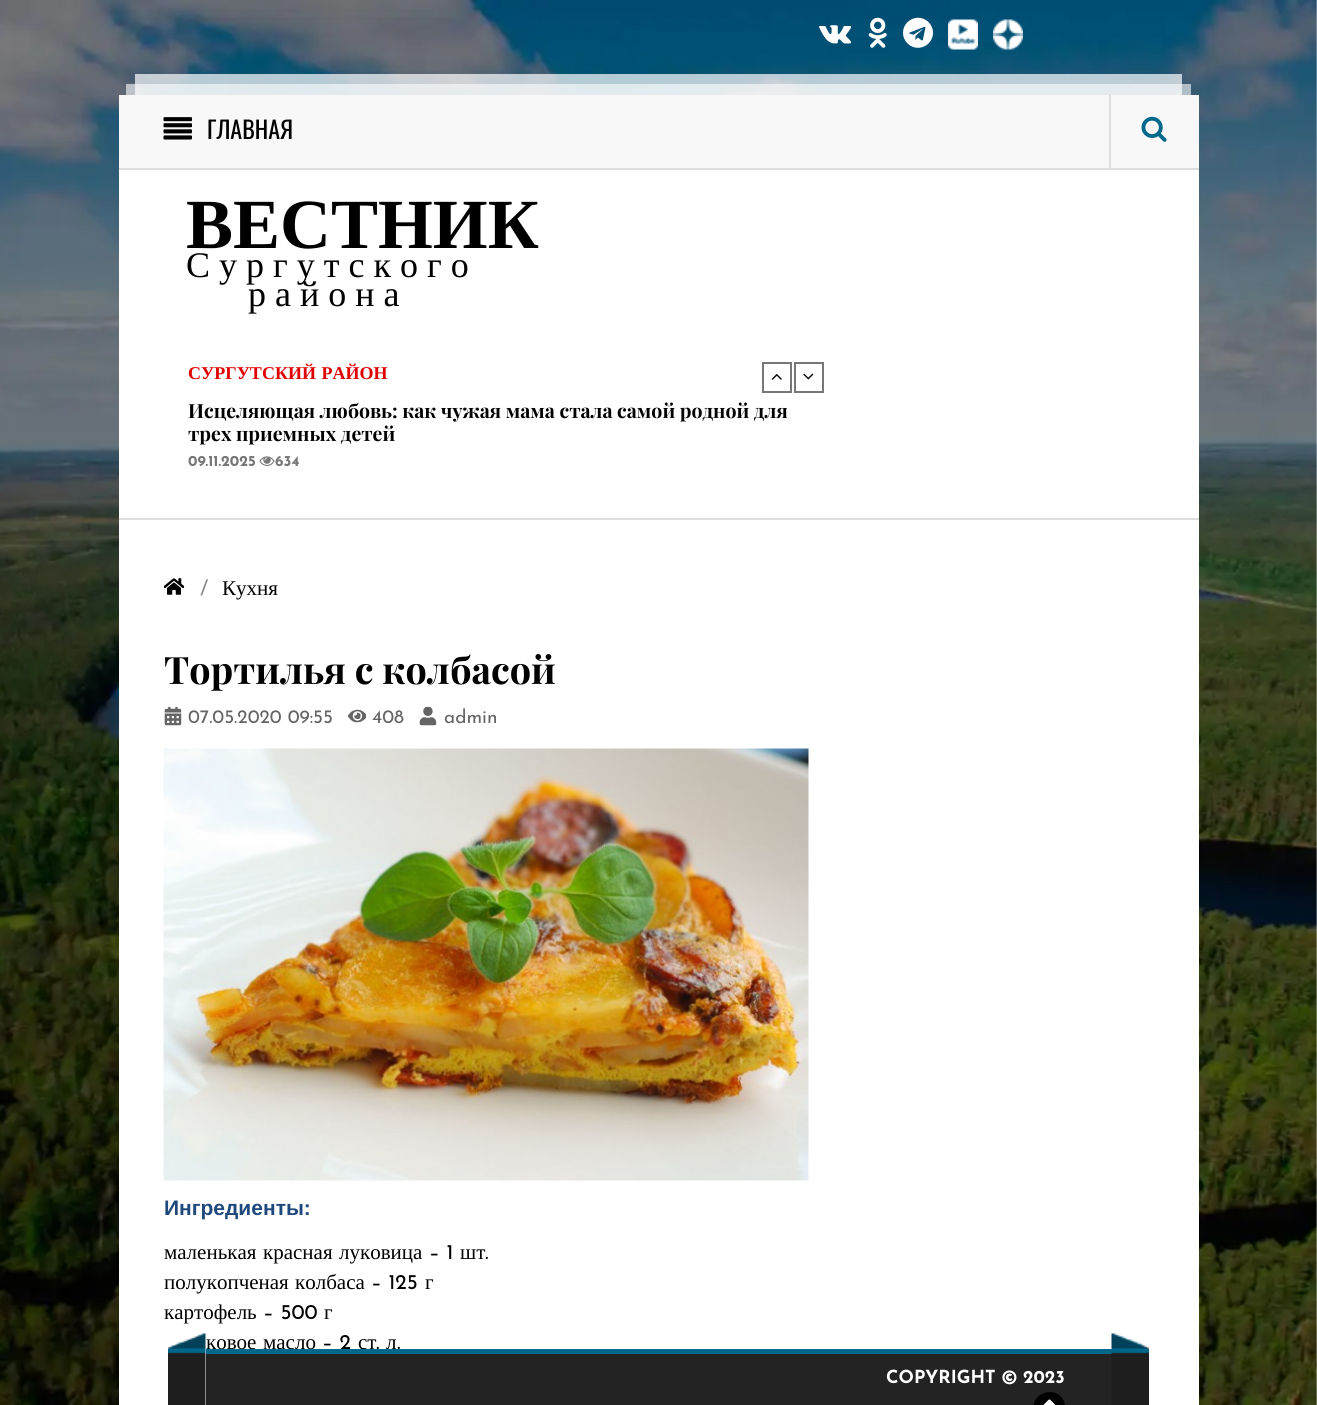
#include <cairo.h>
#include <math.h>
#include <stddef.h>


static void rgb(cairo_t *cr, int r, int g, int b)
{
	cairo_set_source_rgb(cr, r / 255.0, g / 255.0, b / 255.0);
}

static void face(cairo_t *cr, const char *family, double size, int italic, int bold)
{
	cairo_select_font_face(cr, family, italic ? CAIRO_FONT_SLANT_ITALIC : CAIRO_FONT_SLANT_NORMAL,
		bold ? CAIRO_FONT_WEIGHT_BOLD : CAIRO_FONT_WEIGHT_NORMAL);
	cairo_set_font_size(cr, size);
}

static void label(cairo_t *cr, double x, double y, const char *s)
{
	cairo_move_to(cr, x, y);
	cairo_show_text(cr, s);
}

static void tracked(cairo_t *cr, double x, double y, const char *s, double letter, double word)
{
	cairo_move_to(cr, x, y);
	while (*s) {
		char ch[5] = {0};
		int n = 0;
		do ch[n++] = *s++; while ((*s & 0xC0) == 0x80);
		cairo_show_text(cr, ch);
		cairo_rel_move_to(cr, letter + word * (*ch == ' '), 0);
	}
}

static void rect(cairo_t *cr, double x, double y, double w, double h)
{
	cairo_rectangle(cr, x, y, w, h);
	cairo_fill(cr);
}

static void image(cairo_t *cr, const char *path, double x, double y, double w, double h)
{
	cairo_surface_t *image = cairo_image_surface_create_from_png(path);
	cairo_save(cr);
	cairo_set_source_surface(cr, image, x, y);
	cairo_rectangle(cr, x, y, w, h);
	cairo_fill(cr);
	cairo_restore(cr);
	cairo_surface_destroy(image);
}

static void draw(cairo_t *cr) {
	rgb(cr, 255, 255, 255);
	cairo_paint(cr);
	image(cr, "image0.png", 0, 0, 1317, 1405);
	image(cr, "image1.png", 819, 25, 33, 19);
	image(cr, "image2.png", 868, 17, 19, 31);
	image(cr, "image3.png", 903, 17, 30, 31);
	image(cr, "image4.png", 948, 19, 30, 31);
	image(cr, "image5.png", 993, 19, 30, 31);
	rgb(cr, 255, 255, 255);
	rect(cr, 119, 170, 1080, 1235);
	cairo_set_source_rgba(cr, 1, 1, 1, 0.6);
	rect(cr, 126, 84, 1065, 11);
	cairo_set_source_rgba(cr, 1, 1, 1, 0.7);
	rect(cr, 135, 74, 1047, 21);
	rgb(cr, 248, 248, 248);
	rect(cr, 119, 95, 1080, 73);
	rgb(cr, 221, 221, 221);
	rect(cr, 119, 168, 1080, 2);
	image(cr, "image6.png", 163, 117, 29, 23);
	face(cr, "Oswald", 24, 0, 0);
	rgb(cr, 0, 0, 0);
	label(cr, 207, 139, "ГЛАВНАЯ");
	rgb(cr, 221, 221, 221);
	rect(cr, 1109, 95, 2, 75);
	image(cr, "image7.png", 1141, 116, 26, 26);
	rect(cr, 119, 518, 1080, 2);
	face(cr, "Liberation Serif", 70.5, 0, 1);
	rgb(cr, 0, 0, 0);
	label(cr, 186, 248, "ВЕСТНИК");
	face(cr, "Liberation Serif", 36, 0, 0);
	tracked(cr, 186, 277, "Сургутского", 9, 0);
	tracked(cr, 248, 306, "района", 9, 0);
	cairo_rectangle(cr, 763, 363, 28, 29);
	rgb(cr, 119, 119, 119);
	cairo_stroke(cr);
	image(cr, "image8.png", 771, 374, 11, 6);
	cairo_rectangle(cr, 795, 363, 28, 29);
	cairo_stroke(cr);
	image(cr, "image9.png", 803, 373, 11, 7);
	face(cr, "Liberation Serif", 18, 0, 1);
	rgb(cr, 224, 0, 0);
	tracked(cr, 188, 379, "СУРГУТСКИЙ РАЙОН", 0, 1);
	face(cr, "Playfair Display", 19.5, 0, 1);
	rgb(cr, 0, 0, 0);
	label(cr, 188, 418, "Исцеляющая любовь: как чужая мама стала самой родной для");
	label(cr, 188, 441, "трех приемных детей");
	face(cr, "Josefin Sans", 15, 0, 1);
	rgb(cr, 119, 119, 119);
	label(cr, 188, 466, "09.11.2025");
	image(cr, "image10.png", 259, 456, 16, 10);
	label(cr, 275, 466, "634");
	image(cr, "image11.png", 163, 578, 22, 17);
	face(cr, "Josefin Sans", 21, 0, 0);
	rgb(cr, 136, 136, 136);
	label(cr, 200, 595, "/");
	face(cr, "Liberation Serif", 21, 0, 0);
	rgb(cr, 0, 0, 0);
	label(cr, 222, 595, "Кухня");
	face(cr, "Playfair Display", 37.75, 0, 1);
	label(cr, 164, 684, "Тортилья с колбасой");
	image(cr, "image12.png", 164, 706, 18, 20);
	face(cr, "Josefin Sans", 19, 0, 0);
	rgb(cr, 101, 101, 101);
	label(cr, 188, 723, "07.05.2020 09:55");
	image(cr, "image13.png", 348, 709, 18, 14);
	label(cr, 372, 723, "408");
	image(cr, "image14.png", 419, 706, 18, 20);
	label(cr, 444, 723, "admin");
	image(cr, "image15.png", 163, 748, 646, 433);
	face(cr, "Liberation Sans", 21, 0, 1);
	rgb(cr, 31, 73, 125);
	label(cr, 164, 1215, "Ингредиенты:");
	face(cr, "Liberation Serif", 21, 0, 0);
	rgb(cr, 0, 0, 0);
	label(cr, 164, 1259, "маленькая");
	label(cr, 263, 1259, "красная");
	label(cr, 339, 1259, "луковица");
	face(cr, "Josefin Sans", 21, 0, 0);
	label(cr, 429, 1259, "– 1");
	face(cr, "Liberation Serif", 21, 0, 0);
	label(cr, 460, 1259, "шт");
	face(cr, "Josefin Sans", 21, 0, 0);
	label(cr, 485, 1259, ".");
	face(cr, "Liberation Serif", 21, 0, 0);
	label(cr, 164, 1289, "полукопченая");
	label(cr, 295, 1289, "колбаса");
	face(cr, "Josefin Sans", 21, 0, 0);
	label(cr, 371, 1289, "– 125");
	face(cr, "Liberation Serif", 21, 0, 0);
	label(cr, 425, 1289, "г");
	label(cr, 164, 1319, "картофель");
	face(cr, "Josefin Sans", 21, 0, 0);
	label(cr, 263, 1319, "– 500");
	face(cr, "Liberation Serif", 21, 0, 0);
	label(cr, 324, 1319, "г");
	label(cr, 206, 1349, "ковое");
	label(cr, 263, 1349, "масло");
	face(cr, "Josefin Sans", 21, 0, 0);
	label(cr, 322, 1349, "– 2");
	face(cr, "Liberation Serif", 21, 0, 0);
	label(cr, 358, 1349, "ст");
	face(cr, "Josefin Sans", 21, 0, 0);
	label(cr, 376, 1349, ".");
	face(cr, "Liberation Serif", 21, 0, 0);
	label(cr, 386, 1349, "л");
	face(cr, "Josefin Sans", 21, 0, 0);
	label(cr, 397, 1349, ".");
	rgb(cr, 35, 35, 35);
	rect(cr, 206, 1354, 906, 51);
	rgb(cr, 0, 104, 139);
	rect(cr, 206, 1349, 906, 5);
	image(cr, "image16.png", 168, 1333, 38, 72);
	face(cr, "Josefin Sans", 18, 0, 1);
	rgb(cr, 255, 255, 255);
	label(cr, 886, 1383, "COPYRIGHT © 2023");
	rgb(cr, 0, 0, 0);
	cairo_new_path(cr);
	cairo_move_to(cr, 1050, 1392);
	cairo_curve_to(cr, 1058.5, 1392, 1065, 1398.5, 1065, 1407);
	cairo_curve_to(cr, 1065, 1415.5, 1058.5, 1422, 1050, 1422);
	cairo_curve_to(cr, 1041, 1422, 1033.5, 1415.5, 1033.5, 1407);
	cairo_curve_to(cr, 1033.5, 1398.5, 1041, 1392, 1050, 1392);
	cairo_close_path(cr);
	cairo_fill(cr);
	image(cr, "image17.png", 1043, 1399, 13, 6);
	image(cr, "image18.png", 1111, 1333, 38, 72);
}

int main(void) {
	cairo_surface_t *surface = cairo_image_surface_create(CAIRO_FORMAT_RGB24, 1317, 1405);
	cairo_t *cr = cairo_create(surface);
	cairo_font_options_t *options = cairo_font_options_create();
	cairo_font_options_set_hint_metrics(options, CAIRO_HINT_METRICS_OFF);
	cairo_font_options_set_hint_style(options, CAIRO_HINT_STYLE_NONE);
	cairo_set_font_options(cr, options);
	cairo_set_miter_limit(cr, 4);
	draw(cr);
	cairo_surface_write_to_png(surface, "render.png");
	cairo_font_options_destroy(options);
	cairo_destroy(cr);
	cairo_surface_destroy(surface);
	return 0;
}
